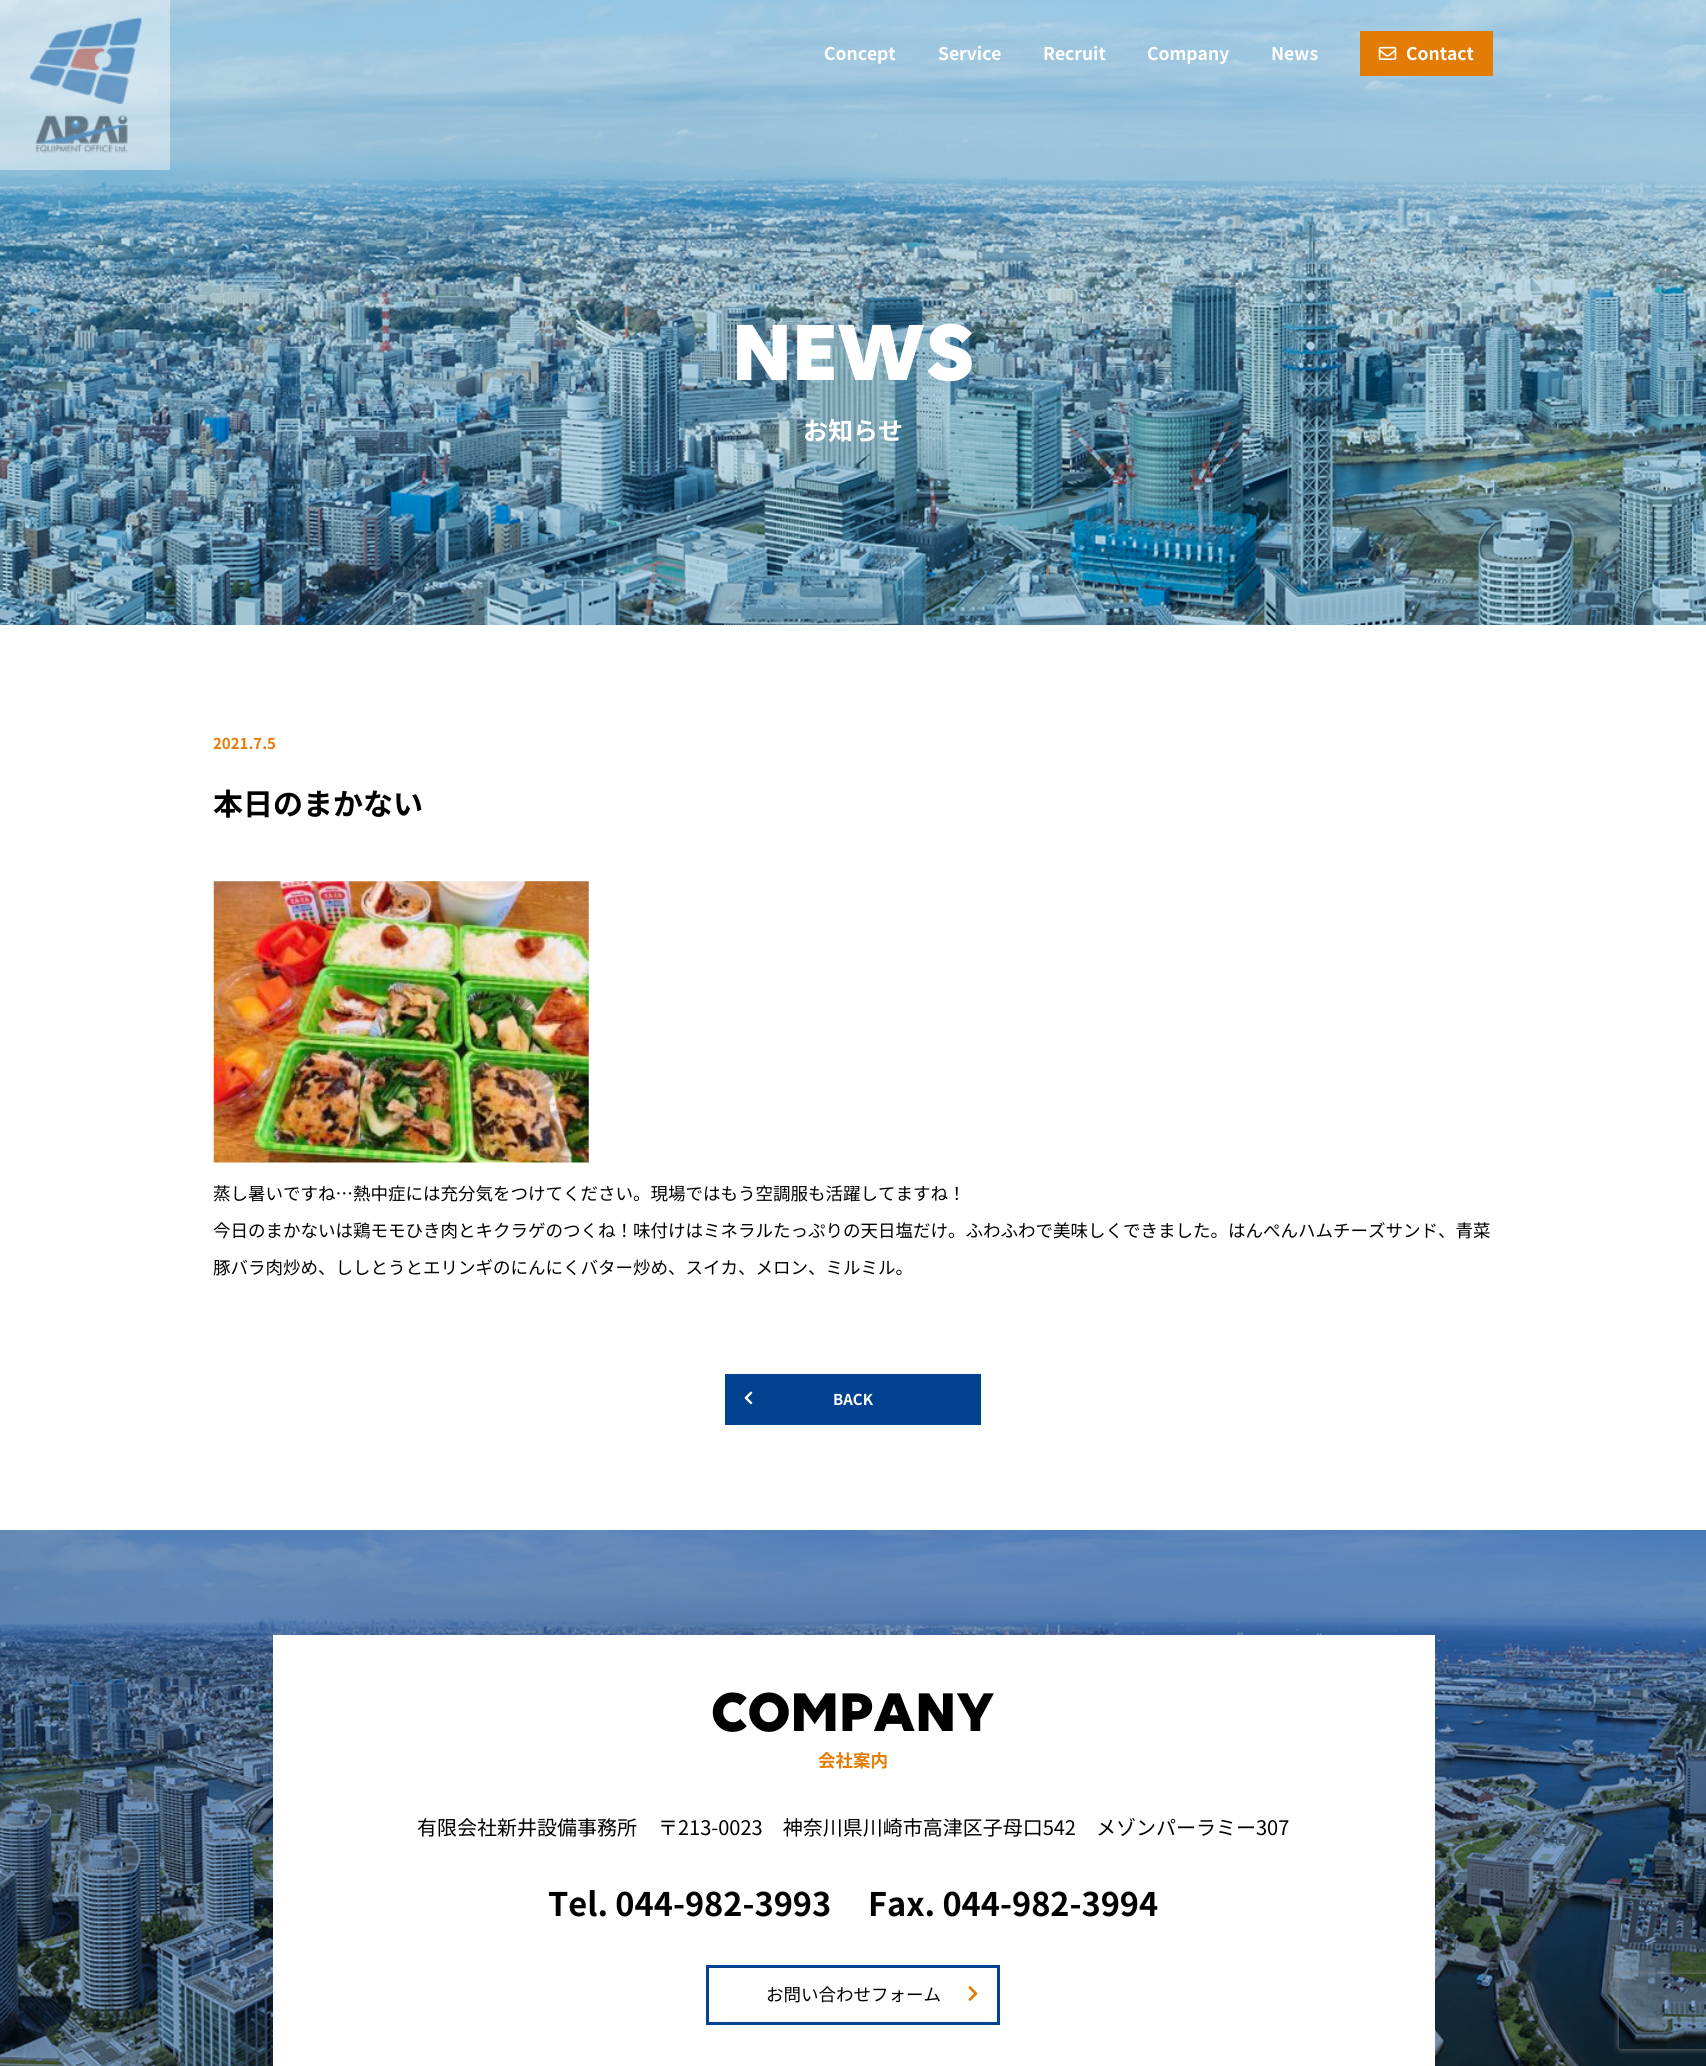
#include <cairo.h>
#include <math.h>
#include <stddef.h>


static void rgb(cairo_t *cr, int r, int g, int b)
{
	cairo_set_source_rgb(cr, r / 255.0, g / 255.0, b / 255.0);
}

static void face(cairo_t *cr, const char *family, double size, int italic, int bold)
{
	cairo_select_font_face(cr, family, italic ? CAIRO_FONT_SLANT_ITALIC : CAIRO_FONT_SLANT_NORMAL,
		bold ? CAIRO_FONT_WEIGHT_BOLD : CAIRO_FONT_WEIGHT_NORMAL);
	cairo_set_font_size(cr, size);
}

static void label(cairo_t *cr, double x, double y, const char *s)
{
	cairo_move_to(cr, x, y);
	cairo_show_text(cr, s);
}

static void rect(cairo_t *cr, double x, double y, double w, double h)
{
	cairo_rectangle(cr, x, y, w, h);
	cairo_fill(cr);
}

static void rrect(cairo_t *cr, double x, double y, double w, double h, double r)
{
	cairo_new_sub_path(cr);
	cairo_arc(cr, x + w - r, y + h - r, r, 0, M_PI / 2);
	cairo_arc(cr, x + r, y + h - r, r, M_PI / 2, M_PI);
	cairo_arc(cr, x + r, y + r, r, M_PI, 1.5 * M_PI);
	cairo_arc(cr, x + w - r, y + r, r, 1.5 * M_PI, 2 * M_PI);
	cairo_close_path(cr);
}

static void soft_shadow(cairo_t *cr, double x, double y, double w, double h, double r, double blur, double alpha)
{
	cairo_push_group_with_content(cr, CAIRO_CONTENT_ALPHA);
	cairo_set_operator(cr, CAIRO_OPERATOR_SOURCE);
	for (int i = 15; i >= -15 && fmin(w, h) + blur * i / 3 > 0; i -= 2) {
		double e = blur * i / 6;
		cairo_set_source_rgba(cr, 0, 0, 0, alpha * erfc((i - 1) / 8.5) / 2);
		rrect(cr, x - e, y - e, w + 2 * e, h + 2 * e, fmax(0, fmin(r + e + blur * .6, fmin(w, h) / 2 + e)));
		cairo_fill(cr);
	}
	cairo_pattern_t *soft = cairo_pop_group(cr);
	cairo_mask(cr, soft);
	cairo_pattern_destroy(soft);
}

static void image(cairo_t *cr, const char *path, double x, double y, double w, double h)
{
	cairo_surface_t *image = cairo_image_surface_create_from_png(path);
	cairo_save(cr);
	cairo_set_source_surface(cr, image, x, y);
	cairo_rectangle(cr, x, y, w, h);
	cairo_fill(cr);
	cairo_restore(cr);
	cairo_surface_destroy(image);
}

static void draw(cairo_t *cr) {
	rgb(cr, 255, 255, 255);
	cairo_paint(cr);
	image(cr, "image2.png", 0, 0, 1706, 625);
	image(cr, "image0.png", 0, 0, 170, 170);
	face(cr, "Noto Sans JP", 17.5, 0, 1);
	rgb(cr, 255, 255, 255);
	label(cr, 824, 60, "Concept");
	label(cr, 938, 60, "Service");
	label(cr, 1043, 60, "Recruit");
	label(cr, 1147, 60, "Company");
	label(cr, 1271, 60, "News");
	rgb(cr, 227, 124, 4);
	rect(cr, 1360, 31, 133, 45);
	image(cr, "image1.png", 1378, 46, 19, 14);
	rgb(cr, 255, 255, 255);
	label(cr, 1406, 60, "Contact");
	face(cr, "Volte", 86, 0, 1);
	label(cr, 732, 380, "NEWS");
	face(cr, "Noto Sans JP", 25, 0, 1);
	label(cr, 803, 440, "お知らせ");
	face(cr, "Noto Sans JP", 15, 0, 1);
	rgb(cr, 227, 124, 4);
	label(cr, 213, 749, "2021.7.5");
	face(cr, "Noto Sans JP", 30, 0, 1);
	rgb(cr, 0, 0, 0);
	label(cr, 213, 815, "本日のまかない");
	image(cr, "image3.png", 213, 881, 376, 282);
	face(cr, "Noto Sans JP", 17.5, 0, 0);
	label(cr, 213, 1200, "蒸し暑いですね…熱中症には充分気をつけてください。現場ではもう空調服も活躍してますね！");
	label(cr, 213, 1237, "今日のまかないは鶏モモひき肉とキクラゲのつくね！味付けはミネラルたっぷりの天日塩だけ。ふわふわで美味しくできました。はんぺんハムチーズサンド、青菜");
	label(cr, 213, 1274, "豚バラ肉炒め、ししとうとエリンギのにんにくバター炒め、スイカ、メロン、ミルミル。");
	rgb(cr, 0, 66, 144);
	rect(cr, 725, 1374, 256, 51);
	image(cr, "image4.png", 744, 1391, 9, 14);
	face(cr, "Noto Sans JP", 15, 0, 1);
	rgb(cr, 255, 255, 255);
	label(cr, 833, 1405, "BACK");
	image(cr, "image5.png", 0, 1530, 1706, 536);
	rect(cr, 273, 1635, 1162, 431);
	face(cr, "Volte", 58.75, 0, 1);
	rgb(cr, 0, 0, 0);
	label(cr, 711, 1731, "COMPANY");
	face(cr, "Noto Sans JP", 17.5, 0, 1);
	rgb(cr, 227, 124, 4);
	label(cr, 818, 1767, "会社案内");
	face(cr, "Noto Sans JP", 20, 0, 0);
	rgb(cr, 0, 0, 0);
	label(cr, 417, 1835, "有限会社新井設備事務所");
	label(cr, 658, 1835, "〒213-0023　神奈川県川崎市高津区子母口542　メゾンパーラミー307");
	face(cr, "Noto Sans JP", 32.5, 0, 1);
	label(cr, 548, 1916, "Tel. 044-982-3993");
	label(cr, 868, 1916, "Fax. 044-982-3994");
	cairo_rectangle(cr, 707.5, 1966.5, 291, 57);
	rgb(cr, 0, 66, 144);
	cairo_set_line_width(cr, 3);
	cairo_stroke(cr);
	face(cr, "Noto Sans JP", 17.5, 0, 0);
	rgb(cr, 0, 0, 0);
	label(cr, 766, 2001, "お問い合わせフォーム");
	image(cr, "image6.png", 968, 1986, 10, 15);
	cairo_save(cr);
	cairo_set_fill_rule(cr, CAIRO_FILL_RULE_EVEN_ODD);
	cairo_new_path(cr);
	cairo_move_to(cr, 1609, 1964);
	cairo_line_to(cr, 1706, 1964);
	cairo_line_to(cr, 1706, 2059);
	cairo_line_to(cr, 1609, 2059);
	cairo_close_path(cr);
	cairo_move_to(cr, 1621.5, 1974);
	cairo_line_to(cr, 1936.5, 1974);
	cairo_curve_to(cr, 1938, 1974, 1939, 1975, 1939, 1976.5);
	cairo_line_to(cr, 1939, 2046.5);
	cairo_curve_to(cr, 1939, 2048, 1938, 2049, 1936.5, 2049);
	cairo_line_to(cr, 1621.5, 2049);
	cairo_curve_to(cr, 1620, 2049, 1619, 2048, 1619, 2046.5);
	cairo_line_to(cr, 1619, 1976.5);
	cairo_curve_to(cr, 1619, 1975, 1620, 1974, 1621.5, 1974);
	cairo_close_path(cr);
	cairo_clip(cr);
	rgb(cr, 128, 128, 128);
	soft_shadow(cr, 1619, 1974, 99, 75, 2.5, 3, 1);
	cairo_restore(cr);
}

int main(void) {
	cairo_surface_t *surface = cairo_image_surface_create(CAIRO_FORMAT_RGB24, 1706, 2066);
	cairo_t *cr = cairo_create(surface);
	cairo_font_options_t *options = cairo_font_options_create();
	cairo_font_options_set_hint_metrics(options, CAIRO_HINT_METRICS_OFF);
	cairo_font_options_set_hint_style(options, CAIRO_HINT_STYLE_NONE);
	cairo_set_font_options(cr, options);
	cairo_set_miter_limit(cr, 4);
	draw(cr);
	cairo_surface_write_to_png(surface, "render.png");
	cairo_font_options_destroy(options);
	cairo_destroy(cr);
	cairo_surface_destroy(surface);
	return 0;
}
